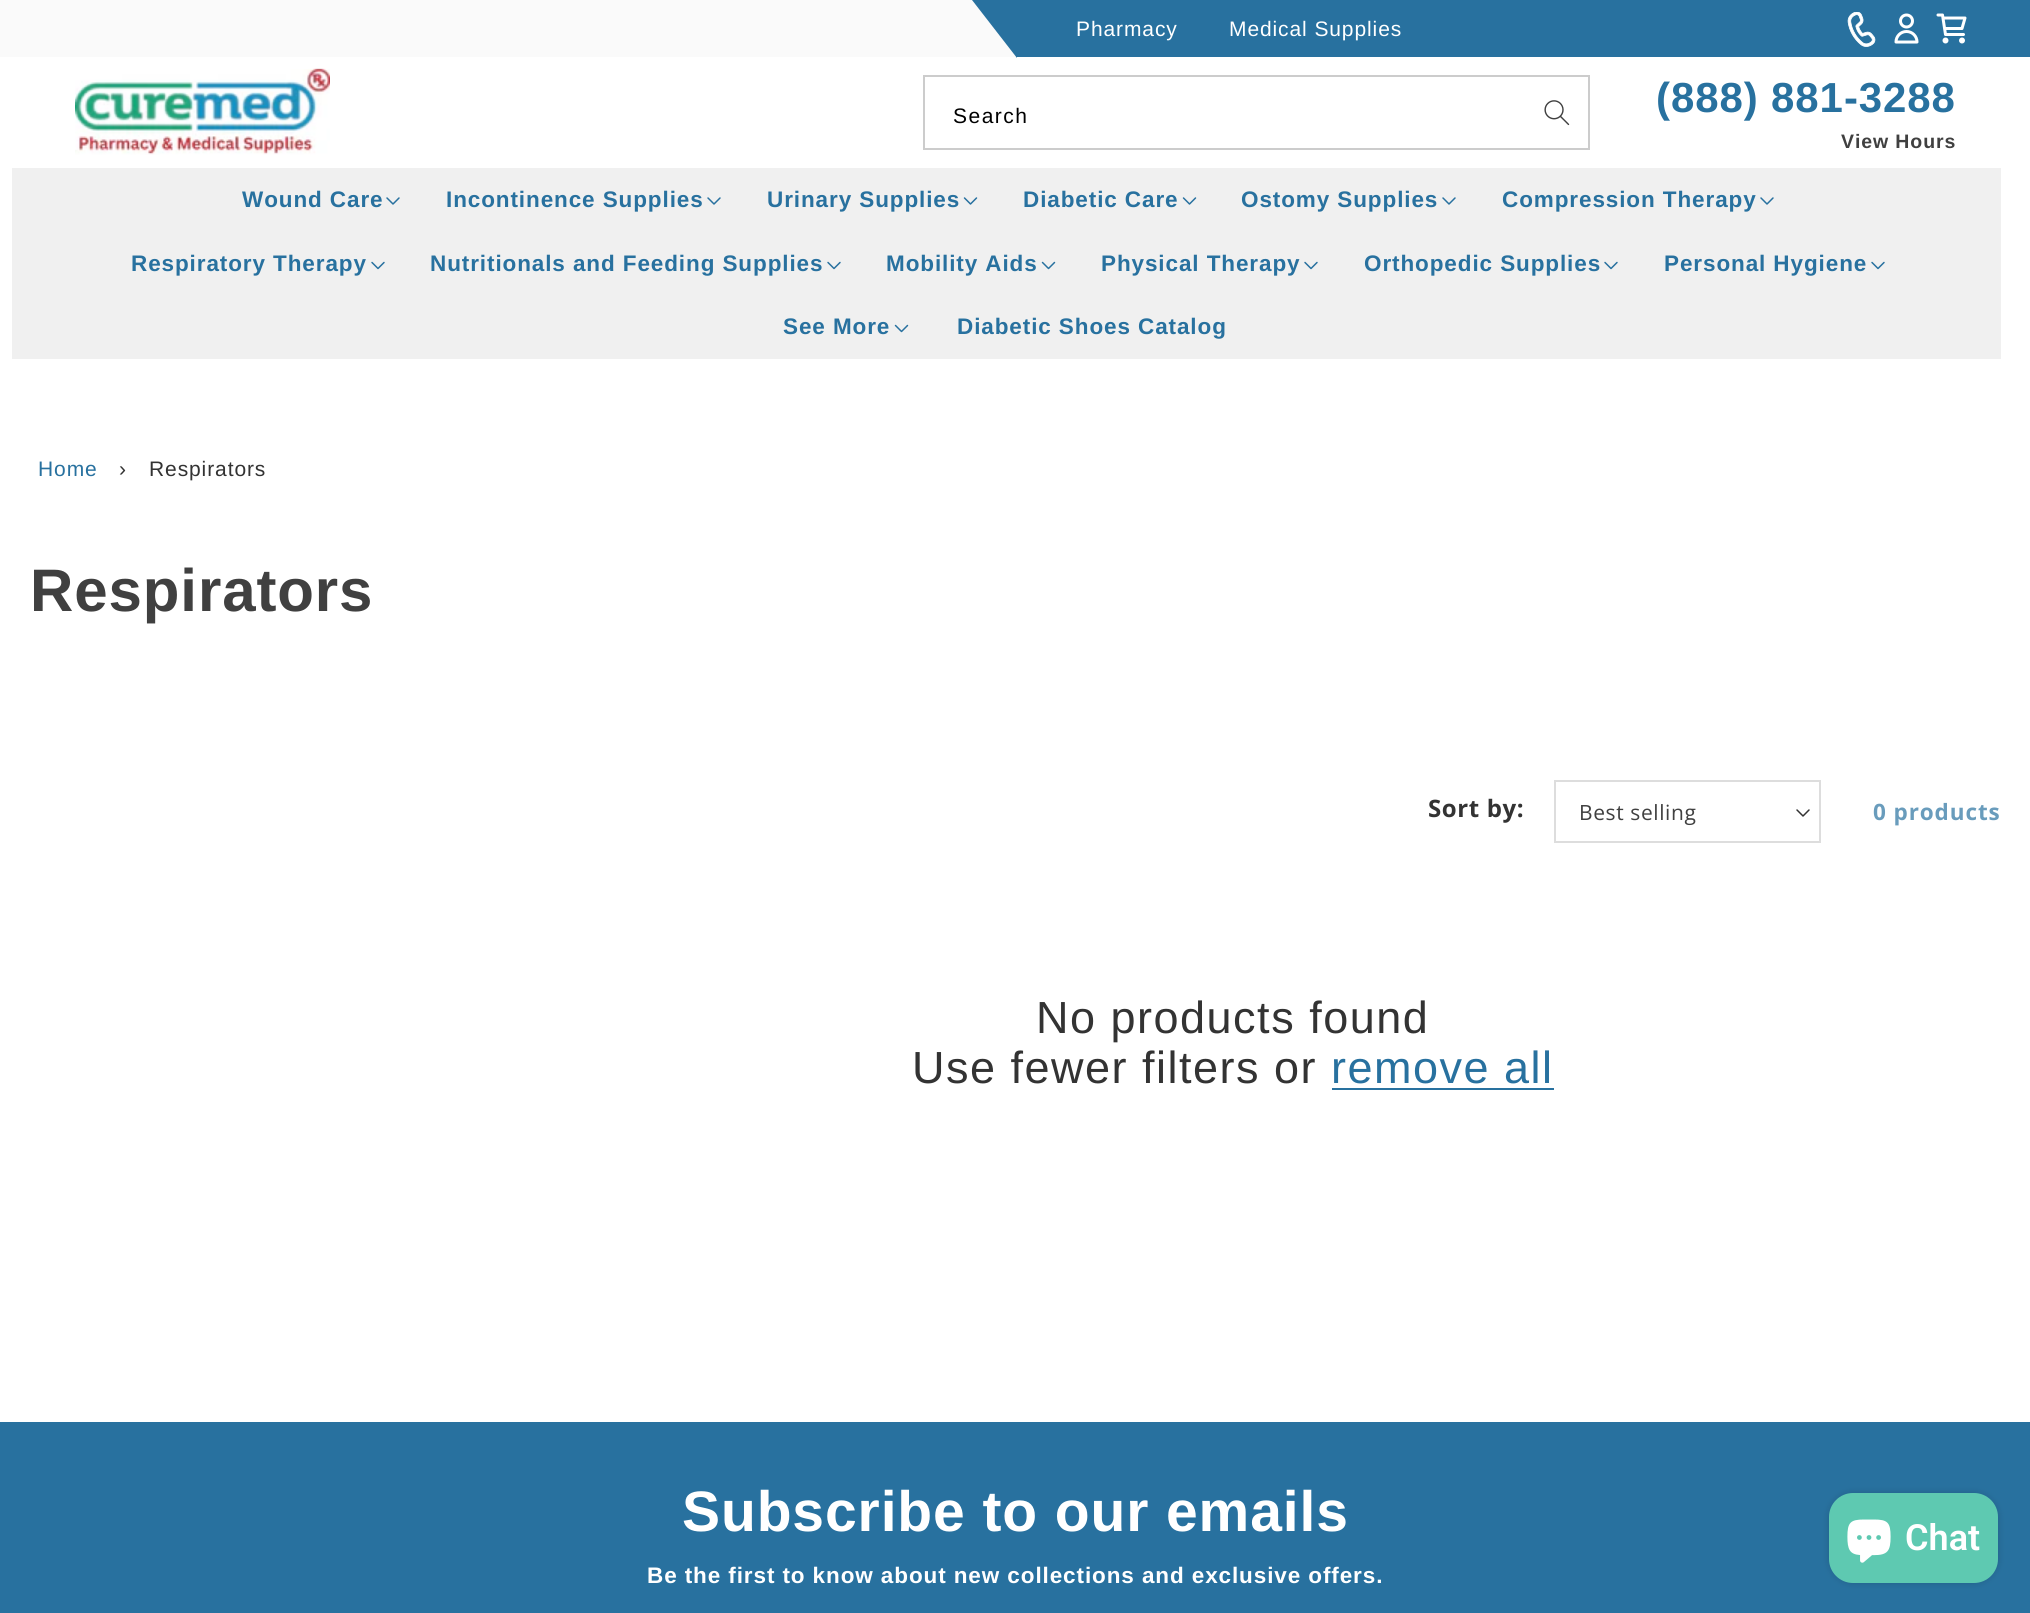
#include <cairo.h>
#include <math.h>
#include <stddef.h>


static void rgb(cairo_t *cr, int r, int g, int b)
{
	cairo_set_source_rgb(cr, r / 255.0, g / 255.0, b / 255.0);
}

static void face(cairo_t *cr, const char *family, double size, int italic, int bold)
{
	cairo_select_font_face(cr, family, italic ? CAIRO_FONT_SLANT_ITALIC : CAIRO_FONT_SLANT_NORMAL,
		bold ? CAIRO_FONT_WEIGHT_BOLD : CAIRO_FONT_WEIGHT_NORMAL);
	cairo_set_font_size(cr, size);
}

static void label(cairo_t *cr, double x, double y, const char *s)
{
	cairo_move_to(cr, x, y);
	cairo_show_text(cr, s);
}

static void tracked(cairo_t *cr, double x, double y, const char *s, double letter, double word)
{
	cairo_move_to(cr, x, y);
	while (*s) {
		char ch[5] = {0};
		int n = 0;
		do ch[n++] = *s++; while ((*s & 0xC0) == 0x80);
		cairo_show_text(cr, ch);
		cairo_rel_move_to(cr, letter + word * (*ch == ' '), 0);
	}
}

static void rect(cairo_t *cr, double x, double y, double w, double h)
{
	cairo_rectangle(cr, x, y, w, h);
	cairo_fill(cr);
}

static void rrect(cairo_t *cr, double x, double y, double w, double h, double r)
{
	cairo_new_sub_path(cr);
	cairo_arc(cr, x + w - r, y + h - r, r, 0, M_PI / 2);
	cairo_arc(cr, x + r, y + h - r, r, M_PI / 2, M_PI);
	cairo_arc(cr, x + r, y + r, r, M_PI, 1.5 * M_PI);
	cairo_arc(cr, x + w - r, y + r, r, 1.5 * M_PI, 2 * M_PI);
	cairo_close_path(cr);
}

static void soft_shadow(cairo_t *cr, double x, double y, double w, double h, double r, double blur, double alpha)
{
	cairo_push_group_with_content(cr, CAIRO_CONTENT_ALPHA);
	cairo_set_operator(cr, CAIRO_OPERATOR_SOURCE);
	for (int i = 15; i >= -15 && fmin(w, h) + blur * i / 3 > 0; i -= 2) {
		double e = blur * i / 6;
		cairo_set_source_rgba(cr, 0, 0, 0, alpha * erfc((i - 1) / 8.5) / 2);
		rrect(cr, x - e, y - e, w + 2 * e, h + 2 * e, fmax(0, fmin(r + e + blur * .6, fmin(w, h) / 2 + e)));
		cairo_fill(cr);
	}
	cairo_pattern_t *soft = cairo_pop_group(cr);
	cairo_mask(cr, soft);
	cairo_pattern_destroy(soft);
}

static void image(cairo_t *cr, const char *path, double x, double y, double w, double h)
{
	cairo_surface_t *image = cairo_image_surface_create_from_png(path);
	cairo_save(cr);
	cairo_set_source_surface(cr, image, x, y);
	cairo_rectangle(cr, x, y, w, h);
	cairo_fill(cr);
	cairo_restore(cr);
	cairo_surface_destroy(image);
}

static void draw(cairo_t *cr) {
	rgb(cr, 255, 255, 255);
	cairo_paint(cr);
	rgb(cr, 250, 250, 250);
	rect(cr, 0, 0, 1016, 57);
	rgb(cr, 40, 113, 159);
	rect(cr, 1016, 0, 1014, 57);
	cairo_new_path(cr);
	cairo_move_to(cr, 972, 0);
	cairo_line_to(cr, 1017, 0);
	cairo_line_to(cr, 1017, 58);
	cairo_close_path(cr);
	cairo_fill(cr);
	face(cr, "Liberation Sans", 21, 0, 0);
	rgb(cr, 255, 255, 255);
	tracked(cr, 1076, 36, "Pharmacy", 0.9, 0);
	tracked(cr, 1229, 36, "Medical Supplies", 0.9, 0);
	image(cr, "image0.png", 1847, 12, 29, 35);
	image(cr, "image1.png", 1894, 13, 25, 31);
	image(cr, "image2.png", 1936, 13, 31, 31);
	image(cr, "image3.png", 75, 68, 255, 87);
	cairo_rectangle(cr, 924, 76, 665, 73);
	rgb(cr, 204, 204, 204);
	cairo_stroke(cr);
	rgb(cr, 0, 0, 0);
	tracked(cr, 953, 123, "Search", 1.5, 0);
	image(cr, "image4.png", 1544, 100, 26, 26);
	face(cr, "Liberation Sans", 42, 0, 1);
	rgb(cr, 40, 113, 159);
	tracked(cr, 1656, 112, "(888) 881-3288", 0.9, 0);
	face(cr, "Liberation Sans", 19.5, 0, 1);
	rgb(cr, 64, 64, 64);
	tracked(cr, 1841, 148, "View Hours", 0.9, 0);
	rgb(cr, 240, 240, 240);
	rect(cr, 12, 168, 1989, 191);
	face(cr, "Liberation Sans", 22.5, 0, 1);
	rgb(cr, 40, 113, 159);
	tracked(cr, 242, 207, "Wound Care", 0.9, 0);
	image(cr, "image5.png", 386, 197, 14, 8);
	tracked(cr, 446, 207, "Incontinence Supplies", 0.9, 0);
	image(cr, "image5.png", 707, 197, 14, 8);
	tracked(cr, 767, 207, "Urinary Supplies", 0.9, 0);
	image(cr, "image6.png", 963, 197, 15, 8);
	tracked(cr, 1023, 207, "Diabetic Care", 0.9, 0);
	image(cr, "image6.png", 1182, 197, 15, 8);
	tracked(cr, 1241, 207, "Ostomy Supplies", 0.9, 0);
	image(cr, "image5.png", 1442, 197, 14, 8);
	tracked(cr, 1502, 207, "Compression Therapy", 0.9, 0);
	image(cr, "image5.png", 1760, 197, 14, 8);
	tracked(cr, 131, 271, "Respiratory Therapy", 0.9, 0);
	image(cr, "image7.png", 371, 261, 14, 9);
	tracked(cr, 430, 271, "Nutritionals and Feeding Supplies", 0.9, 0);
	image(cr, "image7.png", 827, 261, 14, 9);
	tracked(cr, 886, 271, "Mobility Aids", 0.9, 0);
	image(cr, "image8.png", 1041, 261, 15, 9);
	tracked(cr, 1101, 271, "Physical Therapy", 0.9, 0);
	image(cr, "image7.png", 1304, 261, 14, 9);
	tracked(cr, 1364, 271, "Orthopedic Supplies", 0.9, 0);
	image(cr, "image7.png", 1604, 261, 14, 9);
	tracked(cr, 1664, 271, "Personal Hygiene", 0.9, 0);
	image(cr, "image7.png", 1871, 261, 14, 9);
	tracked(cr, 783, 334, "See More", 0.9, 0);
	image(cr, "image8.png", 894, 324, 15, 9);
	tracked(cr, 957, 334, "Diabetic Shoes Catalog", 0.9, 0);
	face(cr, "Liberation Sans", 21, 0, 0);
	tracked(cr, 38, 476, "Home", 0.9, 0);
	rgb(cr, 51, 51, 51);
	tracked(cr, 119, 476, "›", 0.9, 0);
	tracked(cr, 149, 476, "Respirators", 0.9, 0);
	face(cr, "Liberation Sans", 60, 0, 1);
	rgb(cr, 64, 64, 64);
	tracked(cr, 30, 611, "Respirators", 0.9, 0);
	face(cr, "Open Sans", 24, 0, 1);
	rgb(cr, 51, 51, 51);
	tracked(cr, 1428, 817, "Sort by:", 0.6, 0);
	cairo_rectangle(cr, 1555, 781, 265, 61);
	rgb(cr, 221, 221, 221);
	cairo_stroke(cr);
	face(cr, "Open Sans", 21, 0, 0);
	rgb(cr, 64, 64, 64);
	tracked(cr, 1579, 820, "Best selling", 0.6, 0);
	image(cr, "image9.png", 1796, 809, 14, 8);
	face(cr, "Open Sans", 22.5, 0, 1);
	rgb(cr, 105, 156, 188);
	tracked(cr, 1873, 820, "0 products", 0.9, 0);
	face(cr, "Liberation Sans", 45, 0, 0);
	rgb(cr, 51, 51, 51);
	tracked(cr, 1036, 1033, "No products found", 1.5, 0);
	tracked(cr, 912, 1083, "Use fewer filters or", 1.5, 0);
	rgb(cr, 40, 113, 159);
	tracked(cr, 1331, 1083, "remove all", 1.5, 0);
	rect(cr, 1332, 1088, 222, 2);
	rect(cr, 0, 1422, 2030, 191);
	face(cr, "Liberation Sans", 57, 0, 1);
	rgb(cr, 255, 255, 255);
	tracked(cr, 682, 1531, "Subscribe to our emails", 0.9, 0);
	face(cr, "Liberation Sans", 22.5, 0, 1);
	tracked(cr, 647, 1583, "Be the first to know about new collections and exclusive offers.", 0.9, 0);
	rgb(cr, 0, 0, 0);
	soft_shadow(cr, 1829, 1493, 169, 90, 24, 4, 0.15);
	rgb(cr, 94, 201, 177);
	rrect(cr, 1829, 1493, 169, 90, 24);
	cairo_fill(cr);
	image(cr, "image10.png", 1847, 1519, 44, 44);
	face(cr, "Roboto SemiBold", 36, 0, 0);
	rgb(cr, 255, 255, 255);
	label(cr, 1905, 1550, "Chat");
}

int main(void) {
	cairo_surface_t *surface = cairo_image_surface_create(CAIRO_FORMAT_RGB24, 2030, 1613);
	cairo_t *cr = cairo_create(surface);
	cairo_font_options_t *options = cairo_font_options_create();
	cairo_font_options_set_hint_metrics(options, CAIRO_HINT_METRICS_OFF);
	cairo_font_options_set_hint_style(options, CAIRO_HINT_STYLE_NONE);
	cairo_set_font_options(cr, options);
	cairo_set_miter_limit(cr, 4);
	draw(cr);
	cairo_surface_write_to_png(surface, "render.png");
	cairo_font_options_destroy(options);
	cairo_destroy(cr);
	cairo_surface_destroy(surface);
	return 0;
}
